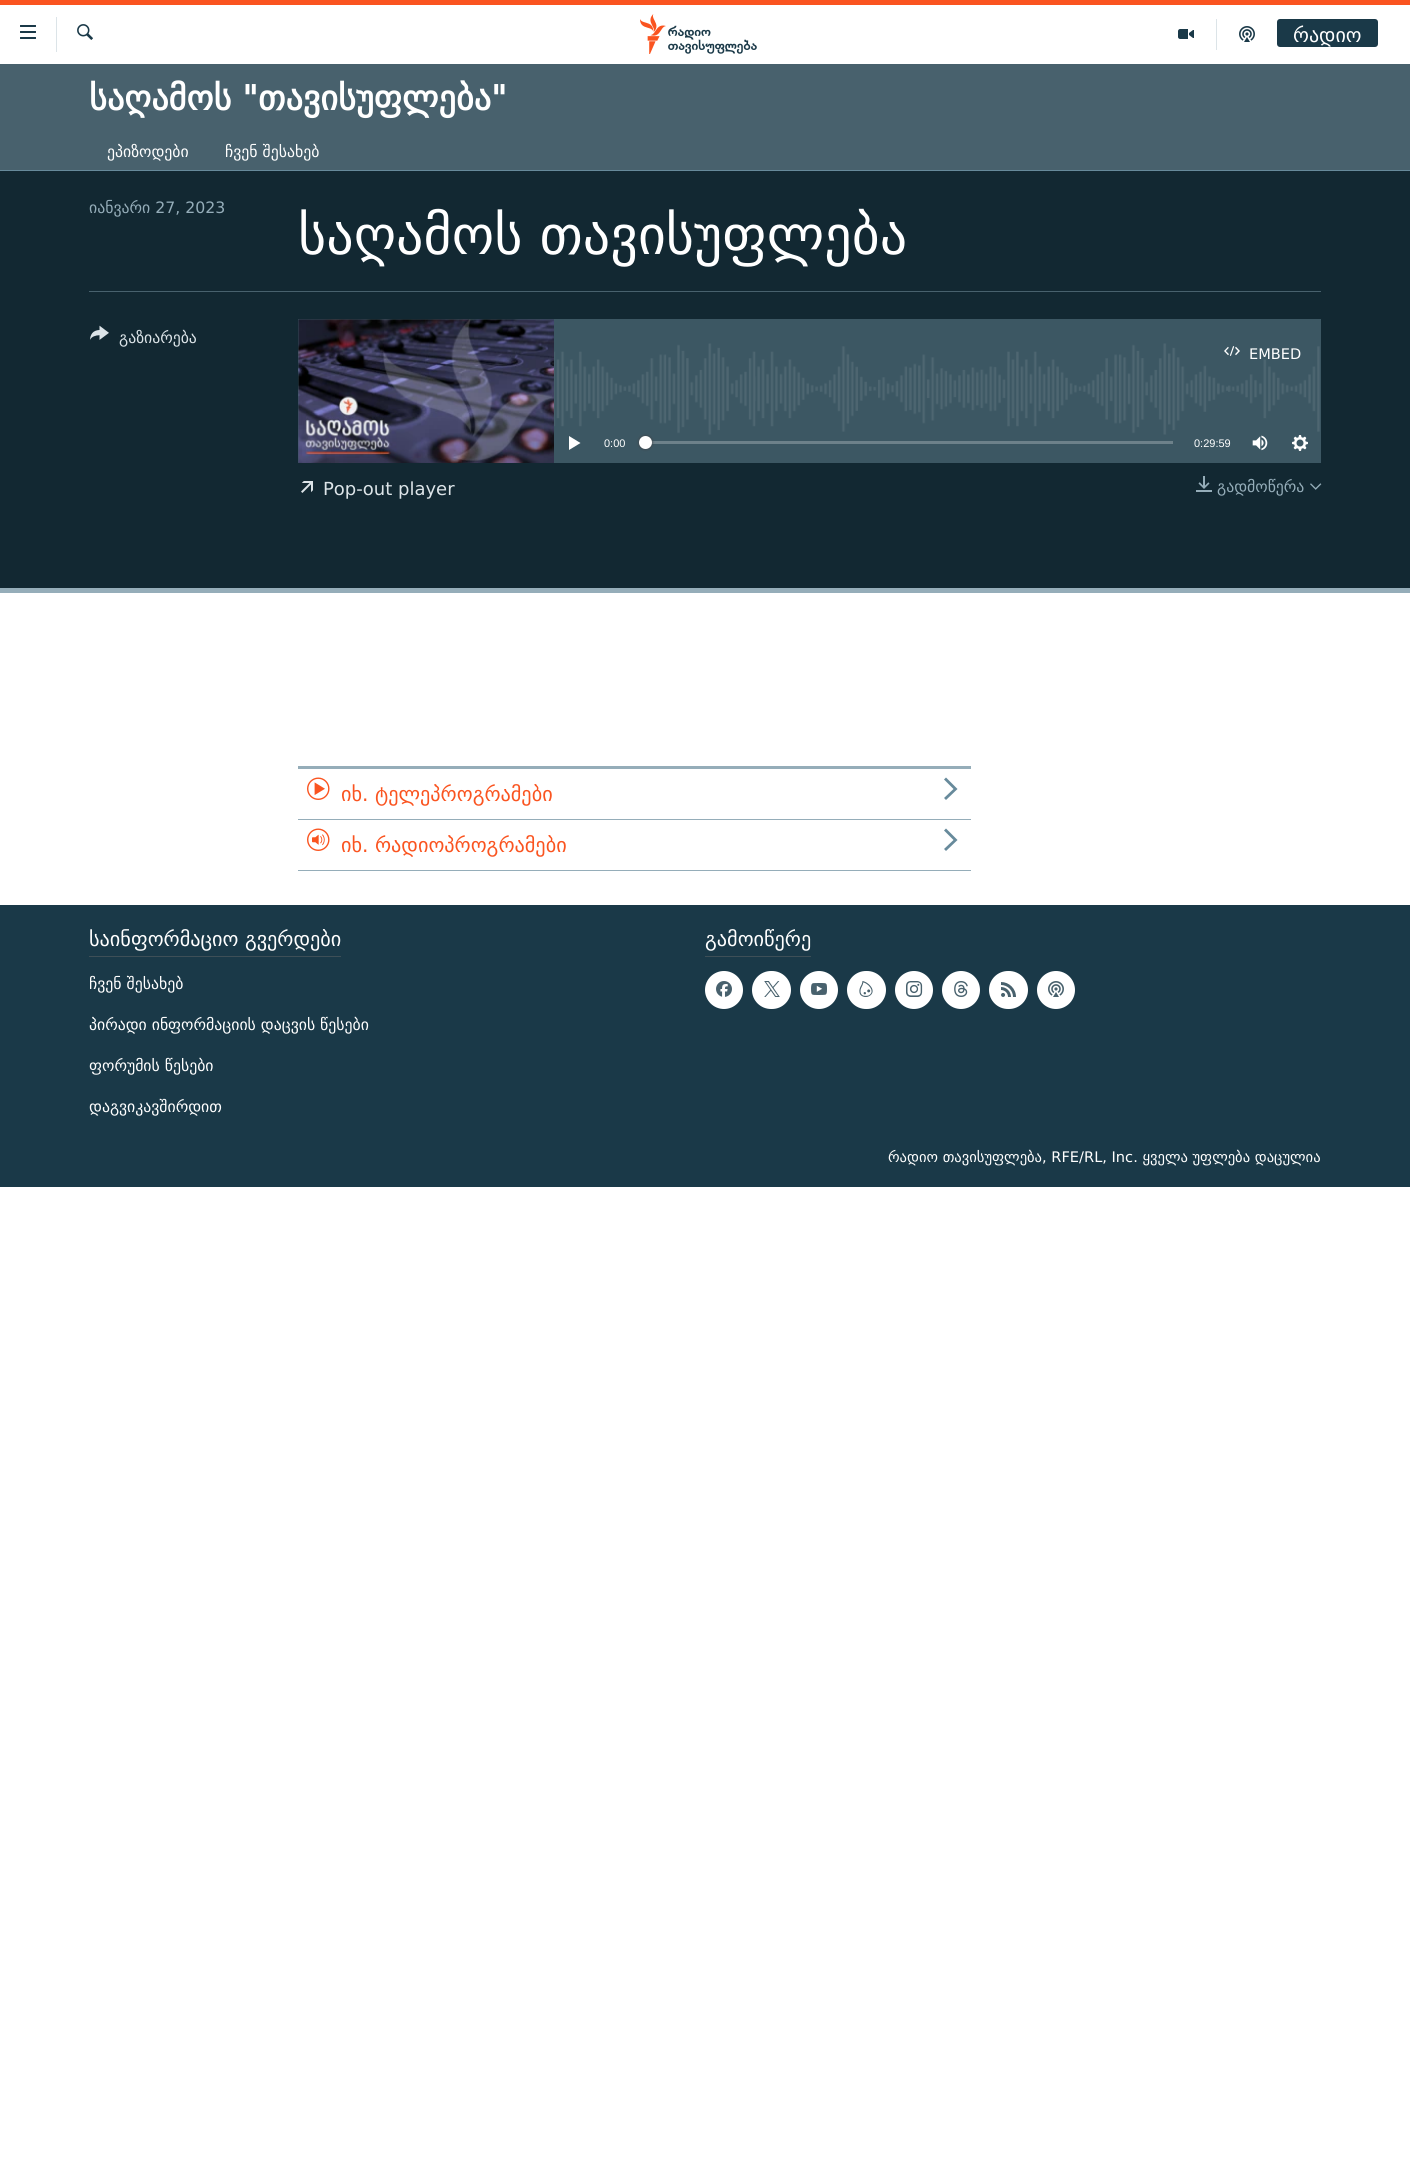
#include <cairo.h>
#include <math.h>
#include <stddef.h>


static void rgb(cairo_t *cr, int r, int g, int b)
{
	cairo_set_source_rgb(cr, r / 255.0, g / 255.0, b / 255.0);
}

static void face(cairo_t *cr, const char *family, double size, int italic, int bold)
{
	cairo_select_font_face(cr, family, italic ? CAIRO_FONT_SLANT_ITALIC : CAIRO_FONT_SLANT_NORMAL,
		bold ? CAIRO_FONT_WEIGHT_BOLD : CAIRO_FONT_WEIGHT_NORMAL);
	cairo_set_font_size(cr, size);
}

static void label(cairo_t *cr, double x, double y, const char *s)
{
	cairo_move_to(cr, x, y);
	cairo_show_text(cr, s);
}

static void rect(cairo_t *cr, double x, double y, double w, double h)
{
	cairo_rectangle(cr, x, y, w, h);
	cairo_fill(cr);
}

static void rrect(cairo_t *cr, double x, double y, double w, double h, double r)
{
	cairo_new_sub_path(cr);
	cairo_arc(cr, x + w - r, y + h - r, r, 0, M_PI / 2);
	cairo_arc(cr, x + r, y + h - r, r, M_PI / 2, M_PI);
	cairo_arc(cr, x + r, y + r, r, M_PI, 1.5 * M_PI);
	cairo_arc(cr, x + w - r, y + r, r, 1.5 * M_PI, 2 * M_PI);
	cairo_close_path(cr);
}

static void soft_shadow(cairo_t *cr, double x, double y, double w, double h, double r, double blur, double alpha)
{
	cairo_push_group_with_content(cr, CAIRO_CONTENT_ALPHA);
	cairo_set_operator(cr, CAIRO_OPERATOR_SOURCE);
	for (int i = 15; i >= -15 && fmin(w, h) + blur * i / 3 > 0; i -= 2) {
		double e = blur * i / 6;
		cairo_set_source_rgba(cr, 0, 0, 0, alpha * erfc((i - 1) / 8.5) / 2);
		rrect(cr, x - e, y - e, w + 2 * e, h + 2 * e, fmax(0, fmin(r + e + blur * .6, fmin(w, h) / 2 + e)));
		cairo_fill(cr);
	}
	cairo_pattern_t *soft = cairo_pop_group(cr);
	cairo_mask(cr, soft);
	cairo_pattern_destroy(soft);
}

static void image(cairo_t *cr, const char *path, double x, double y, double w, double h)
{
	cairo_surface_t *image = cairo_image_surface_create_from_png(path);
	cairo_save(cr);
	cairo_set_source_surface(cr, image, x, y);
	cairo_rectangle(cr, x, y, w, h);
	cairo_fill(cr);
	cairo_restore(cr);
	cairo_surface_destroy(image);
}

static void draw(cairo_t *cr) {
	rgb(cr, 255, 255, 255);
	cairo_paint(cr);
	rgb(cr, 250, 84, 32);
	rect(cr, 0, 0, 1410, 5);
	image(cr, "image0.png", 20, 25, 16, 14);
	rgb(cr, 220, 228, 232);
	rect(cr, 56, 17, 1, 35);
	image(cr, "image1.png", 77, 24, 16, 16);
	image(cr, "image2.png", 640, 14, 117, 40);
	rect(cr, 1216, 19, 1, 31);
	image(cr, "image3.png", 1178, 29, 16, 10);
	image(cr, "image4.png", 1239, 26, 16, 16);
	rgb(cr, 26, 57, 72);
	rrect(cr, 1277, 19, 101, 28, 3);
	cairo_fill(cr);
	face(cr, "DejaVu Sans", 20, 0, 0);
	rgb(cr, 255, 255, 255);
	label(cr, 1293, 42, "რადიო");
	rgb(cr, 72, 97, 109);
	rect(cr, 0, 64, 1410, 106);
	face(cr, "DejaVu Sans", 34.25, 0, 1);
	rgb(cr, 255, 255, 255);
	label(cr, 89, 110, "საღამოს \"თავისუფლება\"");
	face(cr, "DejaVu Sans", 15.75, 0, 0);
	label(cr, 107, 157, "ეპიზოდები");
	label(cr, 225, 157, "ჩვენ შესახებ");
	rgb(cr, 18, 40, 50);
	rect(cr, 0, 171, 1410, 417);
	rgb(cr, 103, 138, 155);
	rect(cr, 0, 170, 1410, 1);
	rgb(cr, 149, 173, 185);
	rect(cr, 0, 588, 1410, 5);
	label(cr, 89, 213, "იანვარი 27, 2023");
	face(cr, "DejaVu Sans", 54, 0, 0);
	rgb(cr, 255, 255, 255);
	label(cr, 298, 254, "საღამოს თავისუფლება");
	rgb(cr, 72, 97, 109);
	rect(cr, 89, 291, 1232, 1);
	image(cr, "image5.png", 90, 325, 19, 15);
	face(cr, "DejaVu Sans", 15.75, 0, 0);
	rgb(cr, 220, 228, 232);
	label(cr, 119, 343, "გაზიარება");
	rgb(cr, 60, 87, 99);
	rect(cr, 298, 319, 1023, 144);
	image(cr, "image6.png", 298, 343, 1022, 92);
	image(cr, "image7.png", 298, 319, 256, 144);
	image(cr, "image8.png", 1224, 346, 16, 10);
	face(cr, "DejaVu Sans", 14.6, 0, 0);
	rgb(cr, 255, 255, 255);
	label(cr, 1249, 359, "EMBED");
	cairo_new_path(cr);
	cairo_move_to(cr, 569, 450);
	cairo_line_to(cr, 580.5, 443);
	cairo_line_to(cr, 569, 436);
	cairo_close_path(cr);
	cairo_fill(cr);
	face(cr, "Liberation Sans", 11, 0, 0);
	label(cr, 604, 447, "0:00");
	rgb(cr, 109, 129, 138);
	rect(cr, 645, 441, 528, 3);
	rgb(cr, 65, 65, 68);
	soft_shadow(cr, 639, 436, 13, 13, 6.5, 1.5, 1);
	rgb(cr, 255, 255, 255);
	cairo_arc(cr, 645.5, 442.5, 6.5, 0, 2 * M_PI);
	cairo_fill(cr);
	label(cr, 1194, 447, "0:29:59");
	image(cr, "image9.png", 1252, 435, 16, 16);
	image(cr, "image10.png", 1292, 435, 16, 16);
	image(cr, "image11.png", 301, 481, 12, 12);
	face(cr, "DejaVu Sans", 18, 0, 0);
	rgb(cr, 220, 228, 232);
	label(cr, 323, 495, "Pop-out player");
	image(cr, "image12.png", 1196, 476, 16, 16);
	face(cr, "DejaVu Sans", 15.75, 0, 0);
	rgb(cr, 149, 173, 185);
	label(cr, 1217, 492, "გადმოწერა");
	image(cr, "image13.png", 1310, 483, 12, 7);
	rect(cr, 298, 766, 673, 3);
	rect(cr, 298, 819, 673, 1);
	image(cr, "image14.png", 307, 777, 23, 23);
	face(cr, "DejaVu Sans", 20.25, 0, 0);
	rgb(cr, 250, 84, 32);
	label(cr, 341, 801, "იხ. ტელეპროგრამები");
	rgb(cr, 103, 138, 155);
	cairo_new_path(cr);
	cairo_move_to(cr, 946, 800);
	cairo_line_to(cr, 957.5, 789);
	cairo_line_to(cr, 946, 777.5);
	cairo_line_to(cr, 944, 779.5);
	cairo_line_to(cr, 953.5, 789);
	cairo_line_to(cr, 944, 798);
	cairo_close_path(cr);
	cairo_fill(cr);
	rgb(cr, 149, 173, 185);
	rect(cr, 298, 870, 673, 1);
	image(cr, "image15.png", 307, 828, 23, 23);
	rgb(cr, 250, 84, 32);
	label(cr, 341, 852, "იხ. რადიოპროგრამები");
	rgb(cr, 103, 138, 155);
	cairo_new_path(cr);
	cairo_move_to(cr, 946, 851);
	cairo_line_to(cr, 957.5, 840);
	cairo_line_to(cr, 946, 828.5);
	cairo_line_to(cr, 944, 830.5);
	cairo_line_to(cr, 953.5, 840);
	cairo_line_to(cr, 944, 849);
	cairo_close_path(cr);
	cairo_fill(cr);
	rgb(cr, 26, 57, 72);
	rect(cr, 0, 905, 1410, 282);
	rgb(cr, 62, 79, 87);
	rect(cr, 89, 956, 252, 1);
	rgb(cr, 255, 255, 255);
	label(cr, 89, 946, "საინფორმაციო გვერდები");
	face(cr, "DejaVu Sans", 15.75, 0, 0);
	label(cr, 89, 989, "ჩვენ შესახებ");
	label(cr, 89, 1030, "პირადი ინფორმაციის დაცვის წესები");
	label(cr, 89, 1071, "ფორუმის წესები");
	label(cr, 89, 1112, "დაგვიკავშირდით");
	rgb(cr, 62, 79, 87);
	rect(cr, 705, 956, 106, 1);
	face(cr, "DejaVu Sans", 20.25, 0, 0);
	rgb(cr, 255, 255, 255);
	label(cr, 705, 946, "გამოიწერე");
	cairo_new_path(cr);
	cairo_arc(cr, 724, 990, 19, 0, 2 * M_PI);
	cairo_fill(cr);
	image(cr, "image16.png", 716, 981, 16, 16);
	rrect(cr, 752, 971, 39, 38, 19);
	cairo_fill(cr);
	image(cr, "image17.png", 764, 981, 16, 16);
	cairo_arc(cr, 819, 990, 19, 0, 2 * M_PI);
	cairo_fill(cr);
	image(cr, "image18.png", 811, 983, 16, 12);
	rrect(cr, 847, 971, 39, 38, 19);
	cairo_fill(cr);
	image(cr, "image19.png", 859, 981, 14, 16);
	cairo_arc(cr, 914, 990, 19, 0, 2 * M_PI);
	cairo_fill(cr);
	image(cr, "image20.png", 906, 981, 17, 16);
	cairo_arc(cr, 961, 990, 19, 0, 2 * M_PI);
	cairo_fill(cr);
	image(cr, "image21.png", 954, 981, 14, 16);
	rrect(cr, 989, 971, 39, 38, 19);
	cairo_fill(cr);
	image(cr, "image22.png", 1001, 982, 15, 15);
	cairo_arc(cr, 1056, 990, 19, 0, 2 * M_PI);
	cairo_fill(cr);
	image(cr, "image23.png", 1048, 981, 16, 16);
	face(cr, "DejaVu Sans", 14.6, 0, 0);
	label(cr, 888, 1162, "რადიო თავისუფლება, RFE/RL, Inc. ყველა უფლება დაცულია");
}

int main(void) {
	cairo_surface_t *surface = cairo_image_surface_create(CAIRO_FORMAT_RGB24, 1410, 2184);
	cairo_t *cr = cairo_create(surface);
	cairo_font_options_t *options = cairo_font_options_create();
	cairo_font_options_set_hint_metrics(options, CAIRO_HINT_METRICS_OFF);
	cairo_font_options_set_hint_style(options, CAIRO_HINT_STYLE_NONE);
	cairo_set_font_options(cr, options);
	cairo_set_miter_limit(cr, 4);
	draw(cr);
	cairo_surface_write_to_png(surface, "render.png");
	cairo_font_options_destroy(options);
	cairo_destroy(cr);
	cairo_surface_destroy(surface);
	return 0;
}
